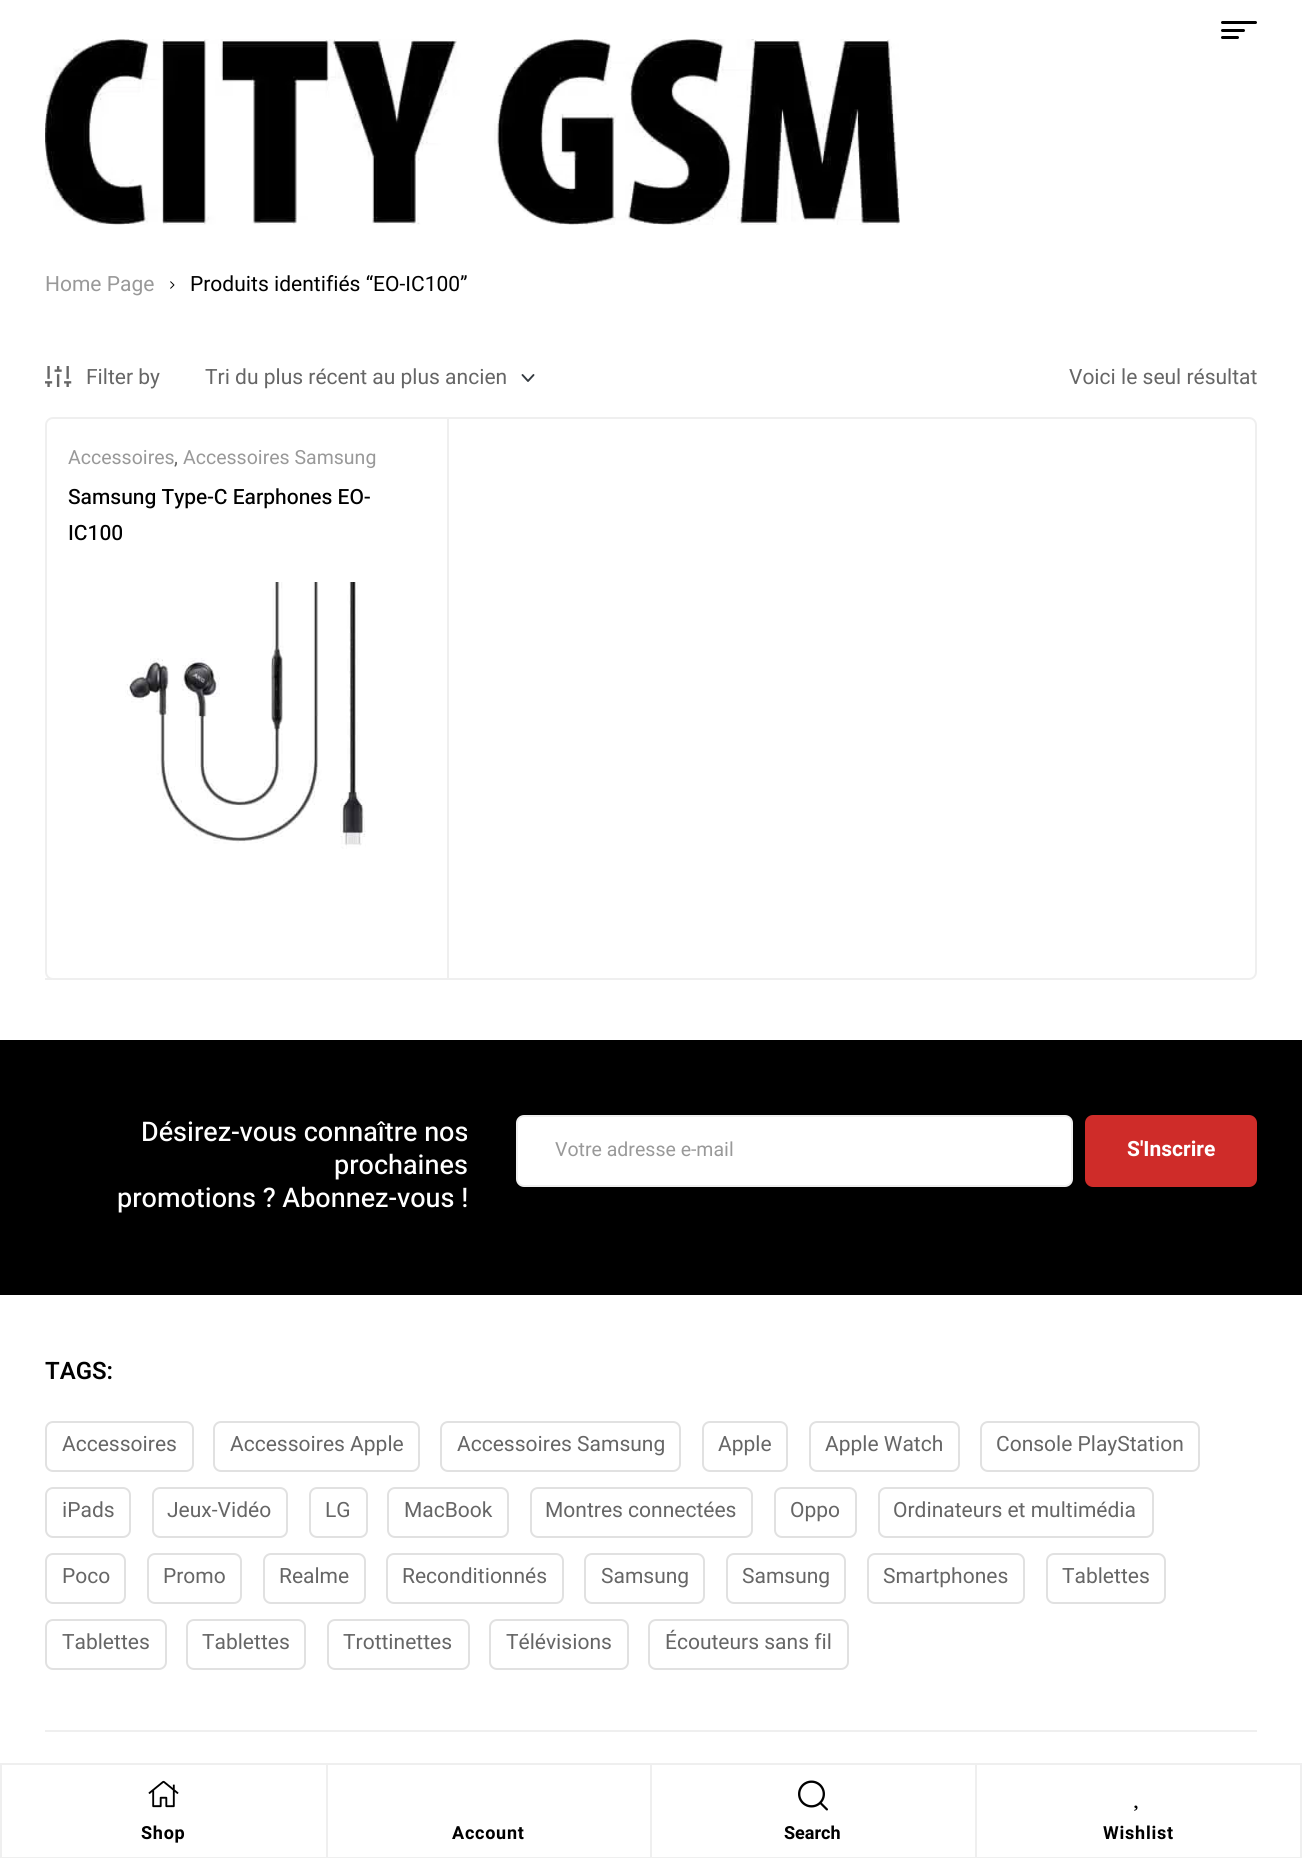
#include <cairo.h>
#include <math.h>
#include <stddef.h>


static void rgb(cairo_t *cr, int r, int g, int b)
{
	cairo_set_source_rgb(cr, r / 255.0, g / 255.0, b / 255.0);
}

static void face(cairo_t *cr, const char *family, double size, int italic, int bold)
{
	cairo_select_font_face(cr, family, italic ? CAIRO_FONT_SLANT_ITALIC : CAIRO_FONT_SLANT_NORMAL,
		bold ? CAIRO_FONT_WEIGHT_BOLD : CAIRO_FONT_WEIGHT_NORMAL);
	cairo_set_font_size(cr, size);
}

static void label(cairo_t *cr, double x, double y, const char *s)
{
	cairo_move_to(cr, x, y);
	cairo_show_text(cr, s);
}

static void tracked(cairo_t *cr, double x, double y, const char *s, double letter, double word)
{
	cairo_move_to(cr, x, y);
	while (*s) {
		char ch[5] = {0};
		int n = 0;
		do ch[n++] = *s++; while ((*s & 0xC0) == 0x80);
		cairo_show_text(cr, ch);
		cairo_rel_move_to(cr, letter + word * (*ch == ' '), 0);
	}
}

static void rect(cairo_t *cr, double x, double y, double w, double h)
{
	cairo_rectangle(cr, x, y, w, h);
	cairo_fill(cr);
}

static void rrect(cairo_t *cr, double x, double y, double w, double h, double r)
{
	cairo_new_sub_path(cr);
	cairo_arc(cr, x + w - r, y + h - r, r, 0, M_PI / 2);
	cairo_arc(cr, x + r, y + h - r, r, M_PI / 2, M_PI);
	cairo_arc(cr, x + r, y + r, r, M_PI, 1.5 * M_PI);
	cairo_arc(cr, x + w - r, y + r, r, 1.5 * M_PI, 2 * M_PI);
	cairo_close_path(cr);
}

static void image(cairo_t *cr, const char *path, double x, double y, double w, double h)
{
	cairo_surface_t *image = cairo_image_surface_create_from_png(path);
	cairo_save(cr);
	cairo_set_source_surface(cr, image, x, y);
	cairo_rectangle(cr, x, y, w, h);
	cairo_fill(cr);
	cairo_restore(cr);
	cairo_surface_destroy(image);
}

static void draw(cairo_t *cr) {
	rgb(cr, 255, 255, 255);
	cairo_paint(cr);
	rgb(cr, 0, 0, 0);
	rrect(cr, 1221, 21, 36, 3, 1.5);
	cairo_fill(cr);
	rrect(cr, 1221, 29, 24, 3, 1.5);
	cairo_fill(cr);
	rrect(cr, 1221, 36, 18, 3, 1.5);
	cairo_fill(cr);
	image(cr, "image0.png", 45, 39, 855, 186);
	face(cr, "Heebo", 21, 0, 0);
	rgb(cr, 153, 153, 153);
	label(cr, 45, 291, "Home Page");
	image(cr, "image1.png", 170, 281, 5, 8);
	rgb(cr, 0, 0, 0);
	label(cr, 190, 291, "Produits identifiés “EO-IC100”");
	image(cr, "image2.png", 45, 366, 27, 21);
	rgb(cr, 102, 102, 102);
	label(cr, 86, 384, "Filter by");
	cairo_new_path(cr);
	cairo_move_to(cr, 522.5, 375);
	cairo_line_to(cr, 528, 381);
	cairo_line_to(cr, 533.5, 375);
	rgb(cr, 52, 58, 64);
	cairo_set_line_width(cr, 1.9);
	cairo_set_line_cap(cr, CAIRO_LINE_CAP_ROUND);
	cairo_set_line_join(cr, CAIRO_LINE_JOIN_ROUND);
	cairo_stroke(cr);
	rgb(cr, 102, 102, 102);
	label(cr, 205, 384, "Tri du plus récent au plus ancien");
	label(cr, 1069, 384, "Voici le seul résultat");
	rrect(cr, 46, 418, 1210, 561, 7);
	rgb(cr, 239, 239, 239);
	cairo_set_line_width(cr, 2);
	cairo_set_line_cap(cr, CAIRO_LINE_CAP_BUTT);
	cairo_set_line_join(cr, CAIRO_LINE_JOIN_MITER);
	cairo_stroke(cr);
	rect(cr, 447, 419, 2, 561);
	rect(cr, 45, 978, 7, 2);
	face(cr, "Heebo", 19.5, 0, 0);
	rgb(cr, 153, 153, 153);
	label(cr, 68, 464, "Accessoires");
	rgb(cr, 102, 102, 102);
	label(cr, 174, 464, ",");
	rgb(cr, 153, 153, 153);
	label(cr, 183, 464, "Accessoires Samsung");
	face(cr, "Heebo Medium", 21, 0, 0);
	rgb(cr, 0, 0, 0);
	label(cr, 68, 504, "Samsung Type-C Earphones EO-");
	label(cr, 68, 540, "IC100");
	image(cr, "image3.png", 125, 582, 241, 267);
	rect(cr, 0, 1040, 1302, 255);
	face(cr, "Heebo Medium", 27, 0, 0);
	rgb(cr, 255, 255, 255);
	label(cr, 141, 1141, "Désirez-vous connaître nos");
	label(cr, 334, 1174, "prochaines");
	label(cr, 117, 1207, "promotions ? Abonnez-vous !");
	rrect(cr, 517, 1116, 555, 70, 7);
	cairo_fill_preserve(cr);
	rgb(cr, 239, 239, 239);
	cairo_stroke(cr);
	face(cr, "Heebo", 19.5, 0, 0);
	rgb(cr, 153, 153, 153);
	label(cr, 555, 1156, "Votre adresse e-mail");
	rgb(cr, 207, 44, 41);
	rrect(cr, 1085, 1115, 172, 72, 8);
	cairo_fill(cr);
	face(cr, "Heebo", 21, 0, 1);
	rgb(cr, 255, 255, 255);
	label(cr, 1127, 1156, "S'Inscrire");
	face(cr, "Heebo SemiBold", 24, 0, 0);
	rgb(cr, 0, 0, 0);
	label(cr, 45, 1379, "TAGS:");
	rrect(cr, 46, 1422, 147, 49, 7);
	rgb(cr, 225, 225, 225);
	cairo_stroke(cr);
	face(cr, "Heebo", 21, 0, 0);
	rgb(cr, 102, 102, 102);
	label(cr, 62, 1451, "Accessoires");
	rrect(cr, 214, 1422, 205, 49, 7);
	rgb(cr, 225, 225, 225);
	cairo_stroke(cr);
	rgb(cr, 102, 102, 102);
	label(cr, 230, 1451, "Accessoires Apple");
	rrect(cr, 441, 1422, 239, 49, 7);
	rgb(cr, 225, 225, 225);
	cairo_stroke(cr);
	rgb(cr, 102, 102, 102);
	label(cr, 457, 1451, "Accessoires Samsung");
	rrect(cr, 703, 1422, 84, 49, 7);
	rgb(cr, 225, 225, 225);
	cairo_stroke(cr);
	rgb(cr, 102, 102, 102);
	label(cr, 718, 1451, "Apple");
	rrect(cr, 810, 1422, 149, 49, 7);
	rgb(cr, 225, 225, 225);
	cairo_stroke(cr);
	rgb(cr, 102, 102, 102);
	label(cr, 825, 1451, "Apple Watch");
	rrect(cr, 981, 1422, 218, 49, 7);
	rgb(cr, 225, 225, 225);
	cairo_stroke(cr);
	rgb(cr, 102, 102, 102);
	label(cr, 996, 1451, "Console PlayStation");
	rrect(cr, 46, 1488, 84, 49, 7);
	rgb(cr, 225, 225, 225);
	cairo_stroke(cr);
	rgb(cr, 102, 102, 102);
	label(cr, 62, 1517, "iPads");
	rrect(cr, 153, 1488, 134, 49, 7);
	rgb(cr, 225, 225, 225);
	cairo_stroke(cr);
	rgb(cr, 102, 102, 102);
	label(cr, 167, 1517, "Jeux-Vidéo");
	rrect(cr, 310, 1488, 57, 49, 7);
	rgb(cr, 225, 225, 225);
	cairo_stroke(cr);
	rgb(cr, 102, 102, 102);
	label(cr, 325, 1517, "LG");
	rrect(cr, 388, 1488, 120, 49, 7);
	rgb(cr, 225, 225, 225);
	cairo_stroke(cr);
	rgb(cr, 102, 102, 102);
	label(cr, 404, 1517, "MacBook");
	rrect(cr, 531, 1488, 221, 49, 7);
	rgb(cr, 225, 225, 225);
	cairo_stroke(cr);
	rgb(cr, 102, 102, 102);
	label(cr, 545, 1517, "Montres connectées");
	rrect(cr, 775, 1488, 81, 49, 7);
	rgb(cr, 225, 225, 225);
	cairo_stroke(cr);
	rgb(cr, 102, 102, 102);
	label(cr, 790, 1517, "Oppo");
	rrect(cr, 879, 1488, 274, 49, 7);
	rgb(cr, 225, 225, 225);
	cairo_stroke(cr);
	rgb(cr, 102, 102, 102);
	label(cr, 893, 1517, "Ordinateurs et multimédia");
	rrect(cr, 46, 1554, 79, 49, 7);
	rgb(cr, 225, 225, 225);
	cairo_stroke(cr);
	rgb(cr, 102, 102, 102);
	label(cr, 62, 1583, "Poco");
	rrect(cr, 148, 1554, 93, 49, 7);
	rgb(cr, 225, 225, 225);
	cairo_stroke(cr);
	rgb(cr, 102, 102, 102);
	label(cr, 163, 1583, "Promo");
	rrect(cr, 264, 1554, 101, 49, 7);
	rgb(cr, 225, 225, 225);
	cairo_stroke(cr);
	rgb(cr, 102, 102, 102);
	label(cr, 279, 1583, "Realme");
	rrect(cr, 387, 1554, 176, 49, 7);
	rgb(cr, 225, 225, 225);
	cairo_stroke(cr);
	rgb(cr, 102, 102, 102);
	label(cr, 402, 1583, "Reconditionnés");
	rrect(cr, 585, 1554, 119, 49, 7);
	rgb(cr, 225, 225, 225);
	cairo_stroke(cr);
	rgb(cr, 102, 102, 102);
	label(cr, 601, 1583, "Samsung");
	rrect(cr, 727, 1554, 118, 49, 7);
	rgb(cr, 225, 225, 225);
	cairo_stroke(cr);
	rgb(cr, 102, 102, 102);
	label(cr, 742, 1583, "Samsung");
	rrect(cr, 868, 1554, 156, 49, 7);
	rgb(cr, 225, 225, 225);
	cairo_stroke(cr);
	rgb(cr, 102, 102, 102);
	label(cr, 883, 1583, "Smartphones");
	rrect(cr, 1047, 1554, 118, 49, 7);
	rgb(cr, 225, 225, 225);
	cairo_stroke(cr);
	rgb(cr, 102, 102, 102);
	label(cr, 1062, 1583, "Tablettes");
	rrect(cr, 46, 1620, 120, 49, 7);
	rgb(cr, 225, 225, 225);
	cairo_stroke(cr);
	rgb(cr, 102, 102, 102);
	label(cr, 62, 1649, "Tablettes");
	rrect(cr, 187, 1620, 118, 49, 7);
	rgb(cr, 225, 225, 225);
	cairo_stroke(cr);
	rgb(cr, 102, 102, 102);
	label(cr, 202, 1649, "Tablettes");
	rrect(cr, 328, 1620, 141, 49, 7);
	rgb(cr, 225, 225, 225);
	cairo_stroke(cr);
	rgb(cr, 102, 102, 102);
	label(cr, 343, 1649, "Trottinettes");
	rrect(cr, 490, 1620, 138, 49, 7);
	rgb(cr, 225, 225, 225);
	cairo_stroke(cr);
	rgb(cr, 102, 102, 102);
	label(cr, 506, 1649, "Télévisions");
	rrect(cr, 649, 1620, 199, 49, 7);
	rgb(cr, 225, 225, 225);
	cairo_stroke(cr);
	rgb(cr, 102, 102, 102);
	label(cr, 665, 1649, "Écouteurs sans fil");
	rgb(cr, 239, 239, 239);
	rect(cr, 45, 1730, 1212, 2);
	cairo_rectangle(cr, 1, 1764, 1300, 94);
	cairo_stroke(cr);
	rect(cr, 326, 1764, 2, 93);
	image(cr, "image4.png", 148, 1780, 31, 28);
	face(cr, "Heebo", 18, 0, 1);
	rgb(cr, 0, 0, 0);
	tracked(cr, 141, 1839, "Shop", 0.75, 0);
	rgb(cr, 239, 239, 239);
	rect(cr, 650, 1764, 2, 93);
	rgb(cr, 0, 0, 0);
	tracked(cr, 452, 1839, "Account", 0.75, 0);
	rgb(cr, 239, 239, 239);
	rect(cr, 975, 1764, 2, 93);
	image(cr, "image5.png", 798, 1780, 30, 31);
	rgb(cr, 0, 0, 0);
	label(cr, 784, 1839, "Search");
	image(cr, "image6.png", 1134, 1805, 4, 6);
	tracked(cr, 1103, 1839, "Wishlist", 0.75, 0);
}

int main(void) {
	cairo_surface_t *surface = cairo_image_surface_create(CAIRO_FORMAT_RGB24, 1302, 1858);
	cairo_t *cr = cairo_create(surface);
	cairo_font_options_t *options = cairo_font_options_create();
	cairo_font_options_set_hint_metrics(options, CAIRO_HINT_METRICS_OFF);
	cairo_font_options_set_hint_style(options, CAIRO_HINT_STYLE_NONE);
	cairo_set_font_options(cr, options);
	cairo_set_miter_limit(cr, 4);
	draw(cr);
	cairo_surface_write_to_png(surface, "render.png");
	cairo_font_options_destroy(options);
	cairo_destroy(cr);
	cairo_surface_destroy(surface);
	return 0;
}
